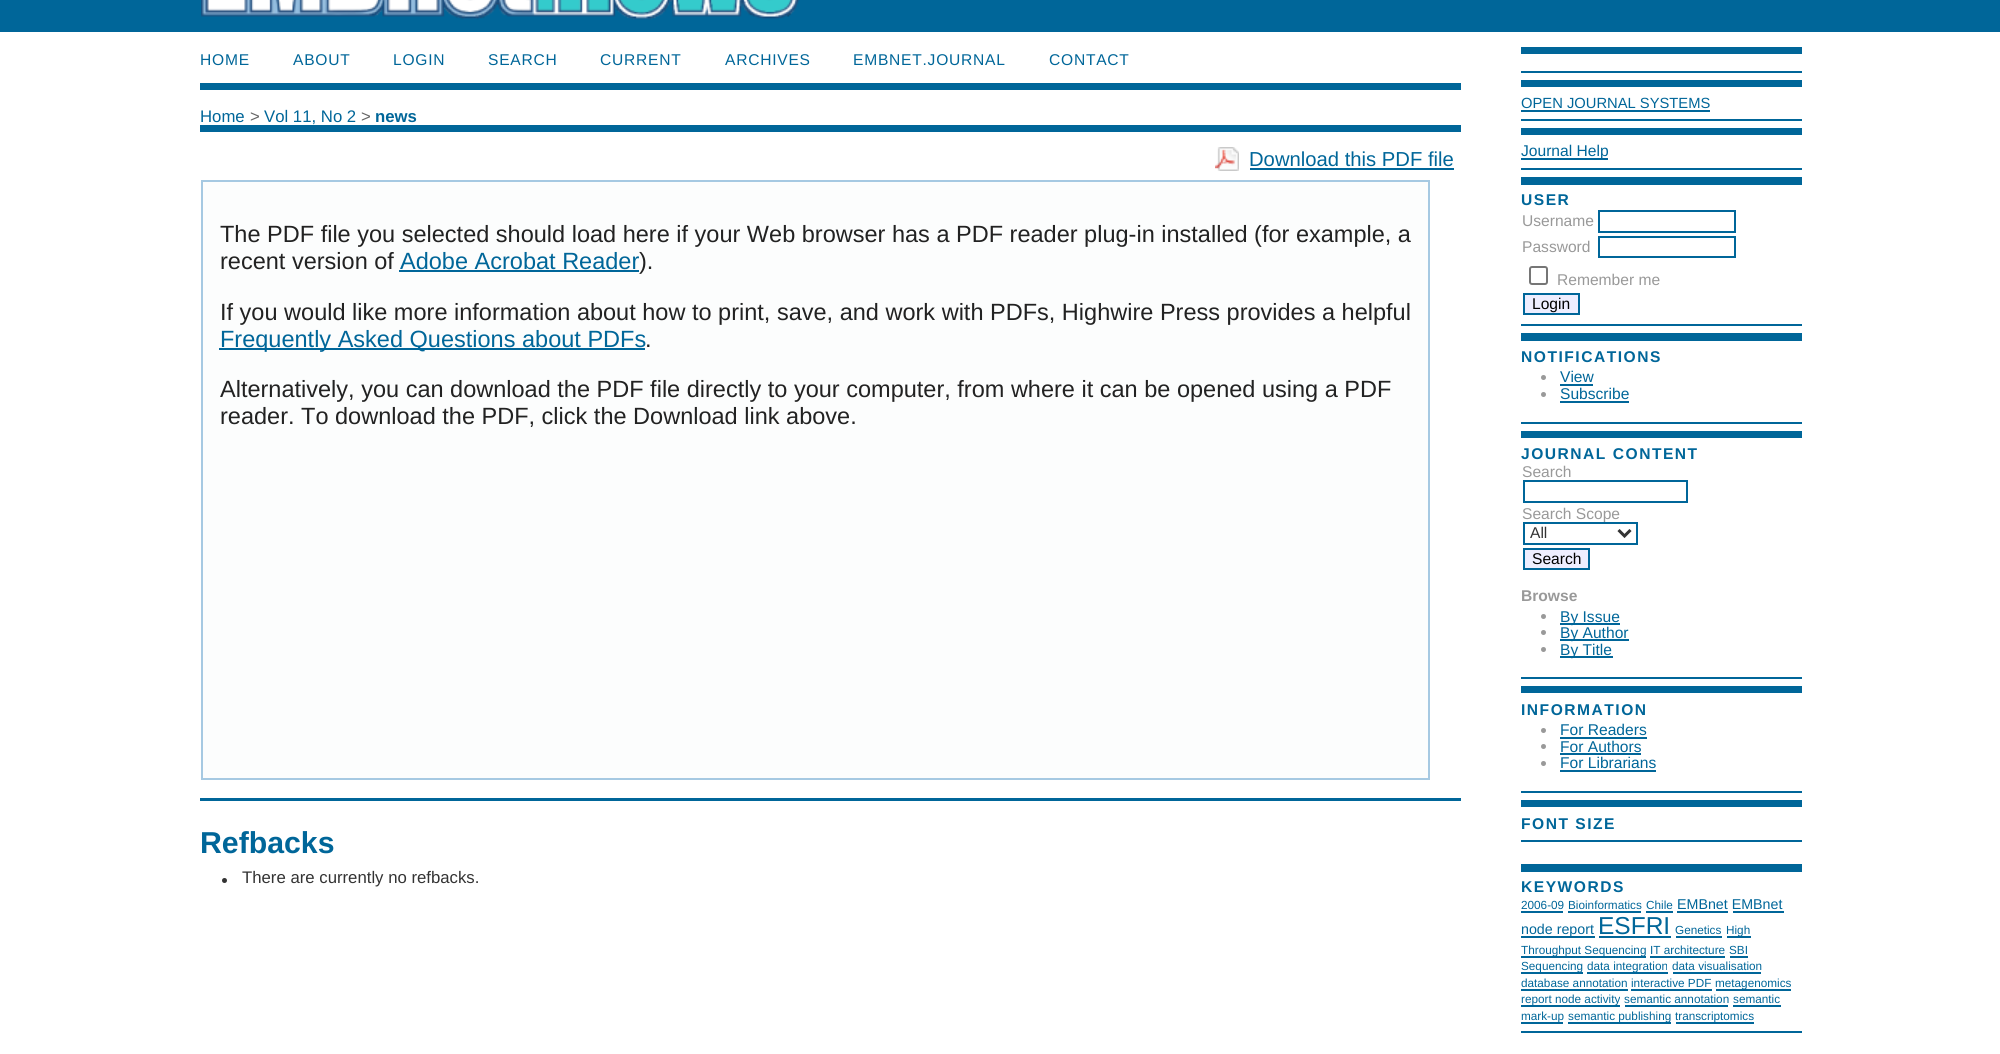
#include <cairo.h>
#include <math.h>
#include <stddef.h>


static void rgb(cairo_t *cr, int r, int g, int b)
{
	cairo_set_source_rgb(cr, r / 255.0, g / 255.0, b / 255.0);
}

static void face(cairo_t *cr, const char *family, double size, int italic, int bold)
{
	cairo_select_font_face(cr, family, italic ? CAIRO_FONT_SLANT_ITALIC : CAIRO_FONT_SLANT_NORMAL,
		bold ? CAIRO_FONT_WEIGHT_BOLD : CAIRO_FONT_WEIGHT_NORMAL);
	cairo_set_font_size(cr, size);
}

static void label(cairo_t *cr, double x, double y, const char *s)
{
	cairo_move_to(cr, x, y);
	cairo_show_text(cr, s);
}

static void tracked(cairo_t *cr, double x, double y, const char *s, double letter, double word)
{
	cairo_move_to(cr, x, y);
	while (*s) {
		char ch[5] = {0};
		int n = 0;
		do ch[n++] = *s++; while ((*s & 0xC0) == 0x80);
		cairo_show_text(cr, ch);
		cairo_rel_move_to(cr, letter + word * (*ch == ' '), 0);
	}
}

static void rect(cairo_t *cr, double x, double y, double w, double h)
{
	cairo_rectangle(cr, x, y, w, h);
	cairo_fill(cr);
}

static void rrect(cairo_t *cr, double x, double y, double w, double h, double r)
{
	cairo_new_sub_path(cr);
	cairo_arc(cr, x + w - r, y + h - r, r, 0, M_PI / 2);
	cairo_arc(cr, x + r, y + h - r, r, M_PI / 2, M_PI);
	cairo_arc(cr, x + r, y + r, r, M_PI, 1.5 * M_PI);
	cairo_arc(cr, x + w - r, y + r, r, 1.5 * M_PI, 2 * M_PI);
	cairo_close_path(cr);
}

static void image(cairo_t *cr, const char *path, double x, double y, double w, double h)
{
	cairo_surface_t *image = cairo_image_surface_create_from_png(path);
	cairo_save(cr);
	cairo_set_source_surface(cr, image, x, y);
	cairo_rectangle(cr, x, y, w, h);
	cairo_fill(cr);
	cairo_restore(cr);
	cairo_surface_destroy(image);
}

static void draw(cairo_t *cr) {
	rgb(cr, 255, 255, 255);
	cairo_paint(cr);
	rgb(cr, 0, 102, 153);
	rect(cr, 0, 0, 2000, 32);
	image(cr, "image0.png", 201, 0, 599, 20);
	rect(cr, 200, 83, 1261, 7);
	face(cr, "Liberation Sans", 15.6, 0, 0);
	tracked(cr, 200, 65, "HOME", 0.75, 0);
	tracked(cr, 293, 65, "ABOUT", 0.75, 0);
	tracked(cr, 393, 65, "LOGIN", 0.75, 0);
	tracked(cr, 488, 65, "SEARCH", 0.75, 0);
	tracked(cr, 600, 65, "CURRENT", 0.75, 0);
	tracked(cr, 725, 65, "ARCHIVES", 0.75, 0);
	tracked(cr, 853, 65, "EMBNET.JOURNAL", 0.75, 0);
	tracked(cr, 1049, 65, "CONTACT", 0.75, 0);
	face(cr, "Liberation Sans", 16.75, 0, 0);
	label(cr, 200, 122, "Home");
	rgb(cr, 102, 102, 102);
	label(cr, 250, 122, ">");
	rgb(cr, 0, 102, 153);
	label(cr, 264, 122, "Vol 11, No 2");
	rgb(cr, 102, 102, 102);
	label(cr, 361, 122, ">");
	face(cr, "Liberation Sans", 16.75, 0, 1);
	rgb(cr, 0, 102, 153);
	label(cr, 375, 122, "news");
	rect(cr, 200, 125, 1261, 7);
	image(cr, "image1.png", 1215, 147, 24, 24);
	face(cr, "Liberation Sans", 20.25, 0, 0);
	label(cr, 1249, 166, "Download this PDF file");
	rect(cr, 1250, 168, 204, 2);
	rgb(cr, 252, 253, 253);
	cairo_rectangle(cr, 202, 181, 1227, 598);
	cairo_fill_preserve(cr);
	rgb(cr, 166, 201, 226);
	cairo_stroke(cr);
	face(cr, "Liberation Sans", 23.52, 0, 0);
	rgb(cr, 34, 34, 34);
	label(cr, 220, 242, "The PDF file you selected should load here if your Web browser has a PDF reader plug-in installed (for example, a");
	label(cr, 220, 269, "recent version of");
	rgb(cr, 0, 102, 153);
	label(cr, 400, 269, "Adobe Acrobat Reader");
	rect(cr, 399, 270, 240, 2);
	rgb(cr, 34, 34, 34);
	label(cr, 639, 269, ").");
	label(cr, 220, 320, "If you would like more information about how to print, save, and work with PDFs, Highwire Press provides a helpful");
	rgb(cr, 0, 102, 153);
	rect(cr, 219, 348, 426, 2);
	label(cr, 220, 347, "Frequently Asked Questions about PDFs");
	rgb(cr, 34, 34, 34);
	label(cr, 645, 347, ".");
	label(cr, 220, 397, "Alternatively, you can download the PDF file directly to your computer, from where it can be opened using a PDF");
	label(cr, 220, 424, "reader. To download the PDF, click the Download link above.");
	rgb(cr, 0, 102, 153);
	rect(cr, 200, 798, 1261, 3);
	face(cr, "Liberation Sans", 30.25, 0, 1);
	label(cr, 200, 853, "Refbacks");
	rgb(cr, 51, 51, 51);
	cairo_new_path(cr);
	cairo_arc(cr, 224.5, 880.5, 2.5, 0, 2 * M_PI);
	cairo_fill(cr);
	face(cr, "Liberation Sans", 16.75, 0, 0);
	label(cr, 242, 883, "There are currently no refbacks.");
	rgb(cr, 0, 102, 153);
	rect(cr, 1521, 47, 281, 7);
	rect(cr, 1521, 71, 281, 2);
	rect(cr, 1521, 80, 281, 7);
	rect(cr, 1521, 119, 281, 2);
	face(cr, "Liberation Sans", 14.75, 0, 0);
	label(cr, 1521, 108, "OPEN JOURNAL SYSTEMS");
	rect(cr, 1521, 110, 189, 2);
	rect(cr, 1521, 128, 281, 7);
	rect(cr, 1521, 168, 281, 2);
	rect(cr, 1521, 158, 87, 2);
	face(cr, "Liberation Sans", 15.6, 0, 0);
	label(cr, 1521, 156, "Journal Help");
	rect(cr, 1521, 177, 281, 8);
	rect(cr, 1521, 324, 281, 2);
	face(cr, "Liberation Sans", 15.6, 0, 1);
	tracked(cr, 1521, 205, "USER", 1.5, 0);
	face(cr, "Liberation Sans", 15.6, 0, 0);
	rgb(cr, 153, 153, 153);
	label(cr, 1522, 226, "Username");
	cairo_rectangle(cr, 1599, 211, 136, 21);
	rgb(cr, 0, 102, 153);
	cairo_stroke(cr);
	rgb(cr, 153, 153, 153);
	label(cr, 1522, 252, "Password");
	cairo_rectangle(cr, 1599, 237, 136, 20);
	rgb(cr, 0, 102, 153);
	cairo_stroke(cr);
	rrect(cr, 1530, 267, 17, 17, 2);
	rgb(cr, 118, 118, 118);
	cairo_stroke(cr);
	rgb(cr, 153, 153, 153);
	label(cr, 1557, 285, "Remember me");
	rgb(cr, 238, 238, 255);
	cairo_rectangle(cr, 1524, 294, 55, 20);
	cairo_fill_preserve(cr);
	rgb(cr, 0, 102, 153);
	cairo_stroke(cr);
	rgb(cr, 0, 0, 0);
	label(cr, 1532, 309, "Login");
	rgb(cr, 0, 102, 153);
	rect(cr, 1521, 333, 281, 8);
	rect(cr, 1521, 422, 281, 2);
	face(cr, "Liberation Sans", 15.6, 0, 1);
	tracked(cr, 1521, 362, "NOTIFICATIONS", 1.5, 0);
	rgb(cr, 153, 153, 153);
	cairo_new_path(cr);
	cairo_arc(cr, 1543.5, 377.5, 2.5, 0, 2 * M_PI);
	cairo_fill(cr);
	face(cr, "Liberation Sans", 15.6, 0, 0);
	rgb(cr, 0, 102, 153);
	label(cr, 1560, 382, "View");
	rect(cr, 1560, 384, 33, 2);
	rgb(cr, 153, 153, 153);
	cairo_new_path(cr);
	cairo_arc(cr, 1543.5, 394.5, 2.5, 0, 2 * M_PI);
	cairo_fill(cr);
	rgb(cr, 0, 102, 153);
	label(cr, 1560, 399, "Subscribe");
	rect(cr, 1560, 401, 69, 2);
	rect(cr, 1521, 431, 281, 7);
	rect(cr, 1521, 677, 281, 2);
	face(cr, "Liberation Sans", 15.6, 0, 1);
	tracked(cr, 1521, 459, "JOURNAL CONTENT", 1.5, 0);
	face(cr, "Liberation Sans", 15.6, 0, 0);
	rgb(cr, 153, 153, 153);
	label(cr, 1522, 477, "Search");
	cairo_rectangle(cr, 1524, 481, 163, 21);
	rgb(cr, 0, 102, 153);
	cairo_stroke(cr);
	rgb(cr, 153, 153, 153);
	label(cr, 1522, 519, "Search Scope");
	cairo_rectangle(cr, 1524, 523, 113, 21);
	rgb(cr, 0, 102, 153);
	cairo_stroke(cr);
	cairo_new_path(cr);
	cairo_move_to(cr, 1618.5, 530);
	cairo_line_to(cr, 1624.5, 536);
	cairo_line_to(cr, 1630.5, 530);
	rgb(cr, 51, 51, 51);
	cairo_set_line_width(cr, 3);
	cairo_stroke(cr);
	label(cr, 1530, 538, "All");
	rgb(cr, 238, 238, 255);
	cairo_rectangle(cr, 1524, 549, 65, 20);
	cairo_fill_preserve(cr);
	rgb(cr, 0, 102, 153);
	cairo_set_line_width(cr, 2);
	cairo_stroke(cr);
	rgb(cr, 0, 0, 0);
	label(cr, 1532, 564, "Search");
	face(cr, "Liberation Sans", 15.6, 0, 1);
	rgb(cr, 153, 153, 153);
	label(cr, 1521, 601, "Browse");
	cairo_new_path(cr);
	cairo_arc(cr, 1543.5, 616.5, 2.5, 0, 2 * M_PI);
	cairo_fill(cr);
	rgb(cr, 0, 102, 153);
	rect(cr, 1560, 623, 60, 2);
	face(cr, "Liberation Sans", 15.6, 0, 0);
	label(cr, 1560, 622, "By Issue");
	rgb(cr, 153, 153, 153);
	cairo_new_path(cr);
	cairo_arc(cr, 1543.5, 632.5, 2.5, 0, 2 * M_PI);
	cairo_fill(cr);
	rgb(cr, 0, 102, 153);
	rect(cr, 1560, 639, 69, 2);
	label(cr, 1560, 638, "By Author");
	rgb(cr, 153, 153, 153);
	cairo_new_path(cr);
	cairo_arc(cr, 1543.5, 649.5, 2.5, 0, 2 * M_PI);
	cairo_fill(cr);
	rgb(cr, 0, 102, 153);
	rect(cr, 1560, 656, 53, 2);
	label(cr, 1560, 655, "By Title");
	rect(cr, 1521, 686, 281, 7);
	rect(cr, 1521, 791, 281, 2);
	face(cr, "Liberation Sans", 15.6, 0, 1);
	tracked(cr, 1521, 715, "INFORMATION", 1.5, 0);
	rgb(cr, 153, 153, 153);
	cairo_new_path(cr);
	cairo_arc(cr, 1543.5, 730.5, 2.5, 0, 2 * M_PI);
	cairo_fill(cr);
	face(cr, "Liberation Sans", 15.6, 0, 0);
	rgb(cr, 0, 102, 153);
	label(cr, 1560, 735, "For Readers");
	rect(cr, 1560, 737, 87, 2);
	rgb(cr, 153, 153, 153);
	cairo_new_path(cr);
	cairo_arc(cr, 1543.5, 746.5, 2.5, 0, 2 * M_PI);
	cairo_fill(cr);
	rgb(cr, 0, 102, 153);
	label(cr, 1560, 752, "For Authors");
	rect(cr, 1560, 753, 81, 2);
	rgb(cr, 153, 153, 153);
	cairo_new_path(cr);
	cairo_arc(cr, 1543.5, 763.5, 2.5, 0, 2 * M_PI);
	cairo_fill(cr);
	rgb(cr, 0, 102, 153);
	label(cr, 1560, 768, "For Librarians");
	rect(cr, 1560, 770, 96, 2);
	rect(cr, 1521, 800, 281, 7);
	rect(cr, 1521, 840, 281, 2);
	face(cr, "Liberation Sans", 15.6, 0, 1);
	tracked(cr, 1521, 829, "FONT SIZE", 1.5, 0);
	rect(cr, 1521, 864, 281, 8);
	rect(cr, 1521, 1031, 281, 2);
	tracked(cr, 1521, 892, "KEYWORDS", 1.5, 0);
	face(cr, "Liberation Sans", 11.75, 0, 0);
	label(cr, 1521, 909, "2006-09");
	rect(cr, 1521, 911, 42, 2);
	label(cr, 1568, 909, "Bioinformatics");
	rect(cr, 1568, 911, 73, 2);
	label(cr, 1646, 909, "Chile");
	rect(cr, 1646, 911, 27, 2);
	face(cr, "Liberation Sans", 14.25, 0, 0);
	label(cr, 1677, 909, "EMBnet EMBnet");
	rect(cr, 1677, 911, 51, 2);
	rect(cr, 1521, 936, 74, 2);
	label(cr, 1521, 934, "node report");
	rect(cr, 1733, 911, 51, 2);
	face(cr, "Liberation Sans", 24.5, 0, 0);
	label(cr, 1598, 934, "ESFRI");
	rect(cr, 1599, 936, 72, 2);
	face(cr, "Liberation Sans", 11.75, 0, 0);
	label(cr, 1675, 934, "Genetics");
	rect(cr, 1676, 936, 46, 2);
	rect(cr, 1727, 936, 24, 2);
	label(cr, 1726, 934, "High");
	rect(cr, 1521, 956, 125, 2);
	label(cr, 1521, 954, "Throughput Sequencing");
	label(cr, 1650, 954, "IT architecture");
	rect(cr, 1650, 956, 75, 2);
	label(cr, 1729, 954, "SBI");
	rect(cr, 1730, 956, 18, 2);
	rect(cr, 1521, 972, 62, 2);
	label(cr, 1521, 970, "Sequencing");
	rect(cr, 1587, 972, 81, 2);
	label(cr, 1587, 970, "data integration");
	label(cr, 1672, 970, "data visualisation");
	rect(cr, 1673, 972, 88, 2);
	label(cr, 1521, 987, "database annotation");
	rect(cr, 1521, 989, 107, 2);
	label(cr, 1631, 987, "interactive PDF");
	rect(cr, 1631, 989, 81, 2);
	rect(cr, 1716, 989, 75, 2);
	label(cr, 1715, 987, "metagenomics");
	rect(cr, 1521, 1005, 99, 2);
	label(cr, 1521, 1003, "report node activity");
	label(cr, 1624, 1003, "semantic annotation");
	rect(cr, 1625, 1005, 103, 2);
	label(cr, 1733, 1003, "semantic");
	rect(cr, 1733, 1005, 48, 2);
	rect(cr, 1521, 1022, 42, 2);
	label(cr, 1521, 1020, "mark-up");
	rect(cr, 1568, 1022, 103, 2);
	label(cr, 1568, 1020, "semantic publishing");
	rect(cr, 1676, 1022, 78, 2);
	label(cr, 1675, 1020, "transcriptomics");
}

int main(void) {
	cairo_surface_t *surface = cairo_image_surface_create(CAIRO_FORMAT_RGB24, 2000, 1054);
	cairo_t *cr = cairo_create(surface);
	cairo_font_options_t *options = cairo_font_options_create();
	cairo_font_options_set_hint_metrics(options, CAIRO_HINT_METRICS_OFF);
	cairo_font_options_set_hint_style(options, CAIRO_HINT_STYLE_NONE);
	cairo_set_font_options(cr, options);
	cairo_set_miter_limit(cr, 4);
	draw(cr);
	cairo_surface_write_to_png(surface, "render.png");
	cairo_font_options_destroy(options);
	cairo_destroy(cr);
	cairo_surface_destroy(surface);
	return 0;
}
